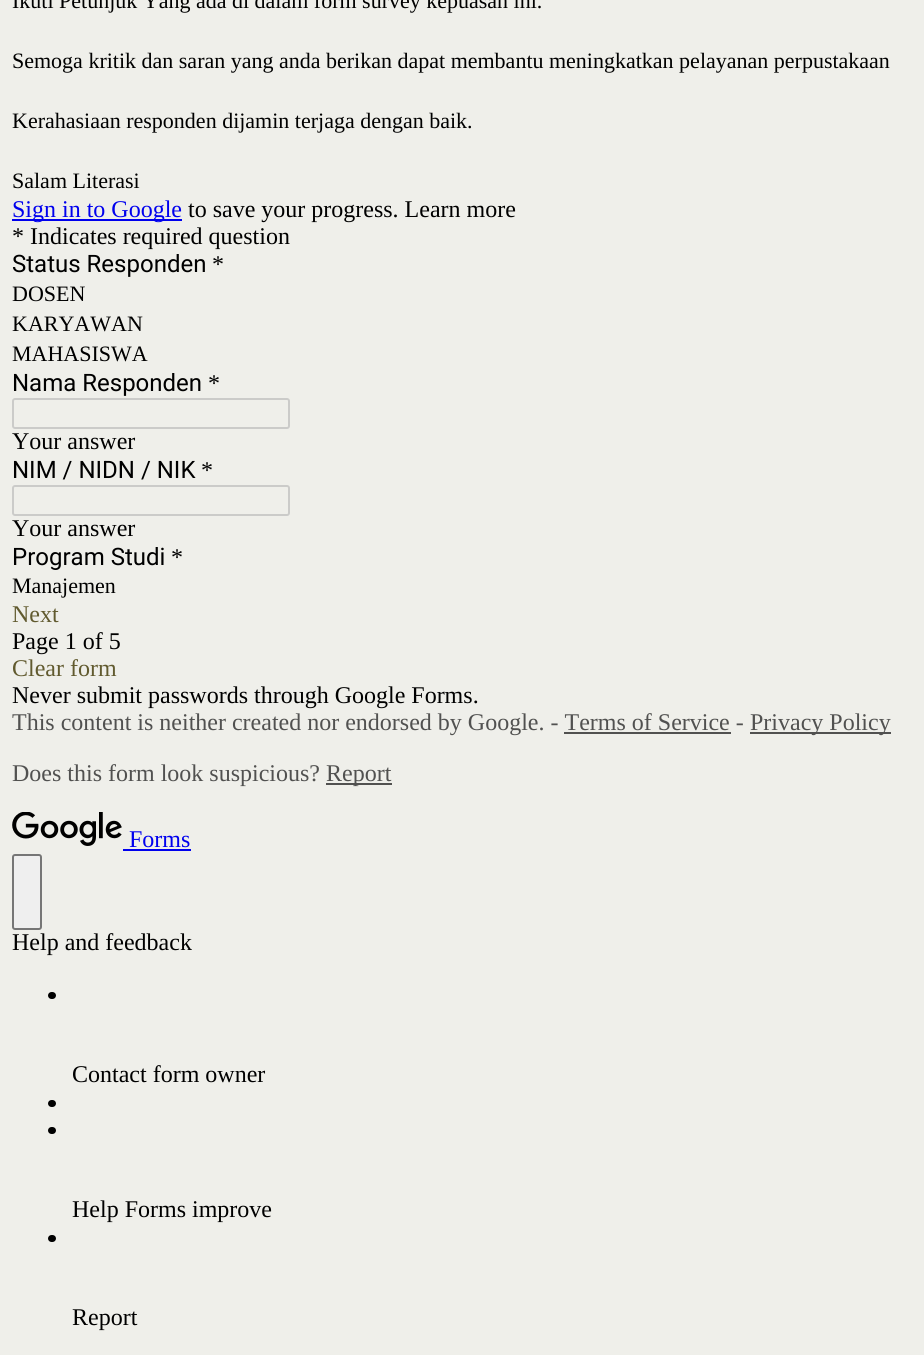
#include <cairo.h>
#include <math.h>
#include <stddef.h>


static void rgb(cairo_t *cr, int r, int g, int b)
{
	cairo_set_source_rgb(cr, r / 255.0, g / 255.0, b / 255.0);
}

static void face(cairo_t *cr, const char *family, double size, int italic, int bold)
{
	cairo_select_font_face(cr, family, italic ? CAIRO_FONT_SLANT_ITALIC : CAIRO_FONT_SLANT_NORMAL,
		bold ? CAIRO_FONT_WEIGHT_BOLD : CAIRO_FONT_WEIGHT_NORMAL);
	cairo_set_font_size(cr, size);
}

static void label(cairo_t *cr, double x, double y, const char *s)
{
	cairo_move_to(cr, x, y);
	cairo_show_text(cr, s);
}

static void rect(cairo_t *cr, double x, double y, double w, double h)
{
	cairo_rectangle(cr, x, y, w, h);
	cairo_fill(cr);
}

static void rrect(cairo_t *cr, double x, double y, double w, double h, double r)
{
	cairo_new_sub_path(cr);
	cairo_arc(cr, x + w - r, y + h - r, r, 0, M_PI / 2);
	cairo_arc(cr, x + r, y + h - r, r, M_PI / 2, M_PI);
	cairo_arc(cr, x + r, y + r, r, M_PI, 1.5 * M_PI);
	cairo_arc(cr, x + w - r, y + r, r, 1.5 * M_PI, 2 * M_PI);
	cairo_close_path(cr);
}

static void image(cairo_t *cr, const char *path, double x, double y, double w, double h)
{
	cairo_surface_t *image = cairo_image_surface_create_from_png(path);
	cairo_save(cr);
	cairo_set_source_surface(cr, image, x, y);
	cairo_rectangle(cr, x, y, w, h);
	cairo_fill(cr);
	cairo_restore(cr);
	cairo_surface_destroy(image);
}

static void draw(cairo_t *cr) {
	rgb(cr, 239, 239, 234);
	cairo_paint(cr);
	face(cr, "Liberation Serif", 22, 0, 0);
	rgb(cr, 0, 0, 0);
	label(cr, 12, 8, "Ikuti Petunjuk Yang ada di dalam form survey kepuasan ini.");
	label(cr, 12, 68, "Semoga kritik dan saran yang anda berikan dapat membantu meningkatkan pelayanan perpustakaan");
	label(cr, 12, 128, "Kerahasiaan responden dijamin terjaga dengan baik.");
	label(cr, 12, 188, "Salam Literasi");
	rgb(cr, 0, 0, 238);
	rect(cr, 12, 219, 170, 2);
	face(cr, "Liberation Serif", 24, 0, 0);
	label(cr, 12, 217, "Sign in to Google");
	rgb(cr, 0, 0, 0);
	label(cr, 188, 217, "to save your progress. Learn more");
	label(cr, 12, 244, "* Indicates required question");
	face(cr, "Roboto", 24, 0, 0);
	label(cr, 12, 272, "Status Responden");
	face(cr, "Liberation Serif", 24, 0, 0);
	label(cr, 212, 272, "*");
	face(cr, "Liberation Serif", 22, 0, 0);
	label(cr, 12, 301, "DOSEN");
	label(cr, 12, 331, "KARYAWAN");
	label(cr, 12, 361, "MAHASISWA");
	face(cr, "Roboto", 24, 0, 0);
	label(cr, 12, 391, "Nama Responden");
	face(cr, "Liberation Serif", 24, 0, 0);
	label(cr, 208, 391, "*");
	rrect(cr, 13, 399, 276, 29, 2);
	rgb(cr, 203, 203, 201);
	cairo_stroke(cr);
	rgb(cr, 0, 0, 0);
	label(cr, 12, 449, "Your answer");
	face(cr, "Roboto", 24, 0, 0);
	label(cr, 12, 478, "NIM / NIDN / NIK");
	face(cr, "Liberation Serif", 24, 0, 0);
	label(cr, 201, 478, "*");
	rrect(cr, 13, 486, 276, 29, 2);
	rgb(cr, 203, 203, 201);
	cairo_stroke(cr);
	rgb(cr, 0, 0, 0);
	label(cr, 12, 536, "Your answer");
	face(cr, "Roboto", 24, 0, 0);
	label(cr, 12, 565, "Program Studi");
	face(cr, "Liberation Serif", 24, 0, 0);
	label(cr, 171, 565, "*");
	face(cr, "Liberation Serif", 22, 0, 0);
	label(cr, 12, 593, "Manajemen");
	face(cr, "Liberation Serif", 24, 0, 0);
	rgb(cr, 97, 90, 47);
	label(cr, 12, 622, "Next");
	rgb(cr, 0, 0, 0);
	label(cr, 12, 649, "Page 1 of 5");
	rgb(cr, 97, 90, 47);
	label(cr, 12, 676, "Clear form");
	rgb(cr, 0, 0, 0);
	label(cr, 12, 703, "Never submit passwords through Google Forms.");
	rgb(cr, 81, 81, 80);
	label(cr, 12, 730, "This content is neither created nor endorsed by Google. - Terms of Service -");
	rect(cr, 750, 732, 141, 2);
	label(cr, 750, 730, "Privacy Policy");
	rect(cr, 564, 732, 167, 2);
	label(cr, 12, 781, "Does this form look suspicious?");
	rect(cr, 326, 783, 66, 2);
	label(cr, 326, 781, "Report");
	image(cr, "image0.png", 12, 812, 110, 34);
	rgb(cr, 0, 0, 238);
	label(cr, 129, 847, "Forms");
	rect(cr, 123, 849, 68, 2);
	rgb(cr, 239, 239, 239);
	rrect(cr, 13, 855, 28, 74, 2);
	cairo_fill_preserve(cr);
	rgb(cr, 118, 118, 118);
	cairo_stroke(cr);
	rgb(cr, 0, 0, 0);
	label(cr, 12, 950, "Help and feedback");
	rrect(cr, 48, 992, 8, 7, 3.5);
	cairo_fill(cr);
	label(cr, 72, 1082, "Contact form owner");
	rrect(cr, 48, 1100, 8, 7, 3.5);
	cairo_fill(cr);
	rrect(cr, 48, 1127, 8, 7, 3.5);
	cairo_fill(cr);
	label(cr, 72, 1217, "Help Forms improve");
	rrect(cr, 48, 1235, 8, 7, 3.5);
	cairo_fill(cr);
	label(cr, 72, 1325, "Report");
}

int main(void) {
	cairo_surface_t *surface = cairo_image_surface_create(CAIRO_FORMAT_RGB24, 924, 1355);
	cairo_t *cr = cairo_create(surface);
	cairo_font_options_t *options = cairo_font_options_create();
	cairo_font_options_set_hint_metrics(options, CAIRO_HINT_METRICS_OFF);
	cairo_font_options_set_hint_style(options, CAIRO_HINT_STYLE_NONE);
	cairo_set_font_options(cr, options);
	cairo_set_miter_limit(cr, 4);
	draw(cr);
	cairo_surface_write_to_png(surface, "render.png");
	cairo_font_options_destroy(options);
	cairo_destroy(cr);
	cairo_surface_destroy(surface);
	return 0;
}
